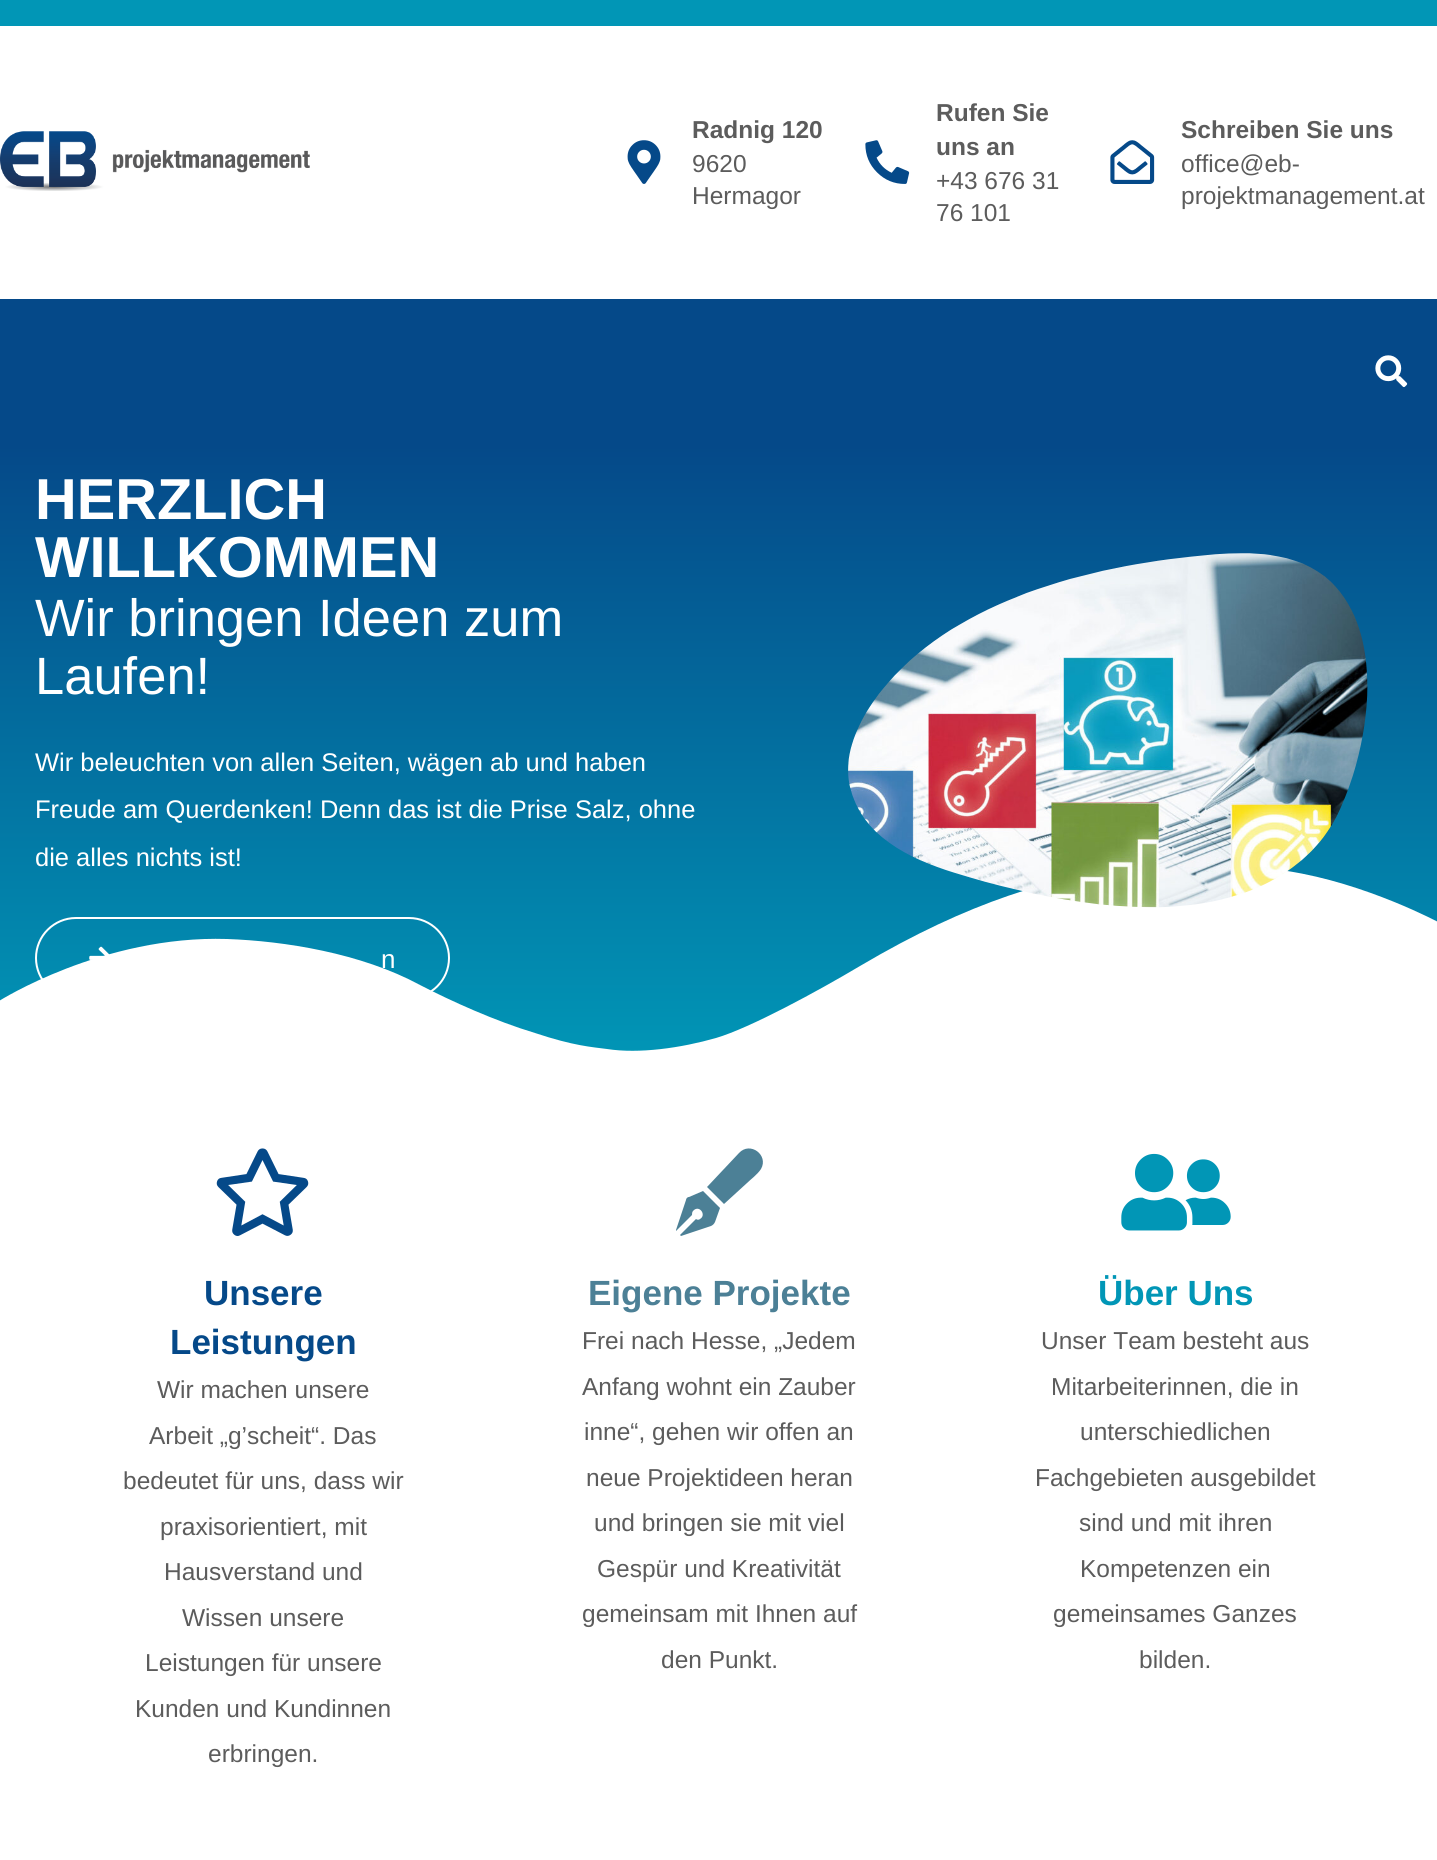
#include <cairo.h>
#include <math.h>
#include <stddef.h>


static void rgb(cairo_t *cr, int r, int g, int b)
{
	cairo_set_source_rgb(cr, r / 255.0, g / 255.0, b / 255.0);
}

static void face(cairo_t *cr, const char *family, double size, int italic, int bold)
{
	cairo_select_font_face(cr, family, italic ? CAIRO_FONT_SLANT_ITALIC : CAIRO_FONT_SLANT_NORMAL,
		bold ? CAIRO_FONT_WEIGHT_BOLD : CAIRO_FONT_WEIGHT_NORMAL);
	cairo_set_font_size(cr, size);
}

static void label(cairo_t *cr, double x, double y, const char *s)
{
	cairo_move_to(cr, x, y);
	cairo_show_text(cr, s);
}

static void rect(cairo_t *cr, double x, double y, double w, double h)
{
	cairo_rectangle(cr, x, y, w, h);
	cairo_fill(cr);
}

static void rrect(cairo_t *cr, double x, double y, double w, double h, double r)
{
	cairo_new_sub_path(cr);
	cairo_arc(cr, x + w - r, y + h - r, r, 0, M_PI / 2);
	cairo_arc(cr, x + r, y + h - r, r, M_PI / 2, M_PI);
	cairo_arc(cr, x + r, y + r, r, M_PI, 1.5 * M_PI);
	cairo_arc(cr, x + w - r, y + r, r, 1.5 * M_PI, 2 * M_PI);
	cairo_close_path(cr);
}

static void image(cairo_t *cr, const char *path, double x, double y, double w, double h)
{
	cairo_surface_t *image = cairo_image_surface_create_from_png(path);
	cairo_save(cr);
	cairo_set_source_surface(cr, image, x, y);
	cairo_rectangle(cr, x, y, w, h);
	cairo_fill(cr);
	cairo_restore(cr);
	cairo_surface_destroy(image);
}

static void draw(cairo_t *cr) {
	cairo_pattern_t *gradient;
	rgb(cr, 255, 255, 255);
	cairo_paint(cr);
	rgb(cr, 1, 150, 182);
	rect(cr, 0, 0, 1437, 26);
	image(cr, "image0.png", 0, 131, 310, 60);
	image(cr, "image1.png", 627, 140, 34, 44);
	face(cr, "Liberation Sans", 24.5, 0, 1);
	rgb(cr, 92, 92, 92);
	label(cr, 692, 138, "Radnig 120");
	face(cr, "Liberation Sans", 24.5, 0, 0);
	label(cr, 692, 172, "9620");
	label(cr, 692, 204, "Hermagor");
	image(cr, "image2.png", 865, 140, 45, 44);
	face(cr, "Liberation Sans", 24.5, 0, 1);
	label(cr, 936, 121, "Rufen Sie");
	label(cr, 936, 155, "uns an");
	face(cr, "Liberation Sans", 24.5, 0, 0);
	label(cr, 936, 189, "+43 676 31");
	label(cr, 936, 221, "76 101");
	image(cr, "image3.png", 1110, 140, 45, 44);
	face(cr, "Liberation Sans", 24.5, 0, 1);
	label(cr, 1181, 138, "Schreiben Sie uns");
	face(cr, "Liberation Sans", 24.5, 0, 0);
	label(cr, 1181, 172, "office@eb-");
	label(cr, 1181, 204, "projektmanagement.at");
	rgb(cr, 5, 73, 137);
	rect(cr, 0, 299, 1437, 146);
	image(cr, "image4.png", 1375, 355, 33, 33);
	gradient = cairo_pattern_create_linear(719, 444, 719, 1061);
	cairo_pattern_add_color_stop_rgba(gradient, 0, 0.02, 0.286, 0.537, 1);
	cairo_pattern_add_color_stop_rgba(gradient, 1, 0.004, 0.588, 0.714, 1);
	cairo_set_source(cr, gradient);
	cairo_pattern_destroy(gradient);
	rect(cr, 0, 445, 1437, 606);
	face(cr, "Liberation Sans", 57.75, 0, 1);
	rgb(cr, 255, 255, 255);
	label(cr, 35, 519, "HERZLICH");
	label(cr, 35, 577, "WILLKOMMEN");
	face(cr, "Liberation Sans", 52.5, 0, 0);
	label(cr, 35, 636, "Wir bringen Ideen zum");
	label(cr, 35, 694, "Laufen!");
	face(cr, "Liberation Sans", 25.5, 0, 0);
	label(cr, 35, 771, "Wir beleuchten von allen Seiten, wägen ab und haben");
	label(cr, 35, 818, "Freude am Querdenken! Denn das");
	label(cr, 436, 818, "ist die Prise Salz, ohne");
	cairo_new_path(cr);
	cairo_move_to(cr, 607, 1049);
	cairo_curve_to(cr, 639, 1054, 681, 1048, 716, 1038);
	cairo_curve_to(cr, 750, 1028, 818, 991, 860, 966);
	cairo_curve_to(cr, 970, 901, 1053, 877, 1138, 866);
	cairo_curve_to(cr, 1172, 862, 1208, 859, 1287, 871);
	cairo_curve_to(cr, 1366, 883, 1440, 923, 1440, 923);
	cairo_line_to(cr, 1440, 1062);
	cairo_line_to(cr, -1, 1062);
	cairo_line_to(cr, -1, 1001);
	cairo_curve_to(cr, -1, 1001, 103, 935, 227, 939);
	cairo_curve_to(cr, 284, 941, 361, 953, 420, 985);
	cairo_curve_to(cr, 451, 1001, 495, 1021, 535, 1033);
	cairo_curve_to(cr, 574, 1046, 592, 1047, 607, 1049);
	cairo_close_path(cr);
	cairo_fill(cr);
	label(cr, 35, 866, "die alles nichts ist!");
	rrect(cr, 36, 918, 413, 80, 40);
	cairo_stroke(cr);
	image(cr, "image5.png", 89, 946, 21, 14);
	face(cr, "Liberation Sans", 26, 0, 0);
	label(cr, 381, 968, "n");
	image(cr, "image6.png", 848, 553, 520, 355);
	image(cr, "image7.png", 216, 1148, 93, 88);
	face(cr, "Liberation Sans", 35, 0, 1);
	rgb(cr, 5, 73, 137);
	label(cr, 204, 1305, "Unsere");
	label(cr, 170, 1354, "Leistungen");
	face(cr, "Liberation Sans", 24.5, 0, 0);
	rgb(cr, 92, 92, 92);
	label(cr, 157, 1398, "Wir machen unsere");
	label(cr, 149, 1444, "Arbeit „g’scheit“. Das");
	label(cr, 123, 1489, "bedeutet für uns, dass wir");
	label(cr, 160, 1535, "praxisorientiert, mit");
	label(cr, 164, 1580, "Hausverstand und");
	label(cr, 182, 1626, "Wissen unsere");
	label(cr, 145, 1671, "Leistungen für unsere");
	label(cr, 135, 1717, "Kunden und Kundinnen");
	label(cr, 208, 1762, "erbringen.");
	rgb(cr, 76, 128, 150);
	cairo_new_path(cr);
	cairo_move_to(cr, 689, 1197);
	cairo_line_to(cr, 703, 1191);
	cairo_line_to(cr, 720, 1208);
	cairo_line_to(cr, 715, 1222);
	cairo_curve_to(cr, 714, 1224, 713, 1225, 711, 1226);
	cairo_line_to(cr, 681, 1236);
	cairo_line_to(cr, 680, 1235);
	cairo_line_to(cr, 696, 1219);
	cairo_curve_to(cr, 697, 1220, 699, 1220, 700, 1219);
	cairo_curve_to(cr, 707, 1215, 699, 1204, 693, 1211);
	cairo_curve_to(cr, 692, 1212, 692, 1214, 692, 1215);
	cairo_line_to(cr, 676, 1231);
	cairo_line_to(cr, 676, 1230);
	cairo_line_to(cr, 686, 1200);
	cairo_curve_to(cr, 686, 1199, 687, 1197, 689, 1197);
	cairo_close_path(cr);
	cairo_move_to(cr, 739, 1153);
	cairo_curve_to(cr, 750, 1141, 769, 1155, 761, 1169);
	cairo_curve_to(cr, 757, 1175, 751, 1179, 747, 1183);
	cairo_line_to(cr, 724, 1204);
	cairo_line_to(cr, 707, 1187);
	cairo_close_path(cr);
	cairo_fill(cr);
	face(cr, "Liberation Sans", 35, 0, 1);
	label(cr, 588, 1305, "Eigene Projekte");
	face(cr, "Liberation Sans", 24.5, 0, 0);
	rgb(cr, 92, 92, 92);
	label(cr, 582, 1349, "Frei nach Hesse, „Jedem");
	label(cr, 582, 1395, "Anfang wohnt ein Zauber");
	label(cr, 584, 1440, "inne“, gehen wir offen an");
	label(cr, 586, 1486, "neue Projektideen heran");
	label(cr, 594, 1531, "und bringen sie mit viel");
	label(cr, 597, 1577, "Gespür und Kreativität");
	label(cr, 582, 1622, "gemeinsam mit Ihnen auf");
	label(cr, 661, 1668, "den Punkt.");
	image(cr, "image8.png", 1121, 1153, 110, 78);
	face(cr, "Liberation Sans", 35, 0, 1);
	rgb(cr, 1, 150, 182);
	label(cr, 1098, 1305, "Über Uns");
	face(cr, "Liberation Sans", 24.5, 0, 0);
	rgb(cr, 92, 92, 92);
	label(cr, 1041, 1349, "Unser Team besteht aus");
	label(cr, 1051, 1395, "Mitarbeiterinnen, die in");
	label(cr, 1080, 1440, "unterschiedlichen");
	label(cr, 1035, 1486, "Fachgebieten ausgebildet");
	label(cr, 1079, 1531, "sind und mit ihren");
	label(cr, 1080, 1577, "Kompetenzen ein");
	label(cr, 1053, 1622, "gemeinsames Ganzes");
	label(cr, 1139, 1668, "bilden.");
}

int main(void) {
	cairo_surface_t *surface = cairo_image_surface_create(CAIRO_FORMAT_RGB24, 1437, 1860);
	cairo_t *cr = cairo_create(surface);
	cairo_font_options_t *options = cairo_font_options_create();
	cairo_font_options_set_hint_metrics(options, CAIRO_HINT_METRICS_OFF);
	cairo_font_options_set_hint_style(options, CAIRO_HINT_STYLE_NONE);
	cairo_set_font_options(cr, options);
	cairo_set_miter_limit(cr, 4);
	draw(cr);
	cairo_surface_write_to_png(surface, "render.png");
	cairo_font_options_destroy(options);
	cairo_destroy(cr);
	cairo_surface_destroy(surface);
	return 0;
}
